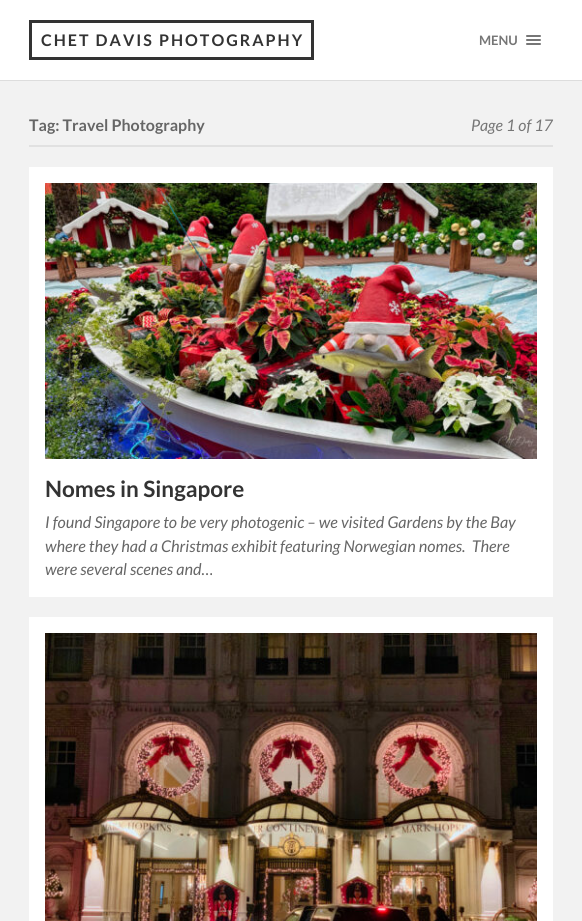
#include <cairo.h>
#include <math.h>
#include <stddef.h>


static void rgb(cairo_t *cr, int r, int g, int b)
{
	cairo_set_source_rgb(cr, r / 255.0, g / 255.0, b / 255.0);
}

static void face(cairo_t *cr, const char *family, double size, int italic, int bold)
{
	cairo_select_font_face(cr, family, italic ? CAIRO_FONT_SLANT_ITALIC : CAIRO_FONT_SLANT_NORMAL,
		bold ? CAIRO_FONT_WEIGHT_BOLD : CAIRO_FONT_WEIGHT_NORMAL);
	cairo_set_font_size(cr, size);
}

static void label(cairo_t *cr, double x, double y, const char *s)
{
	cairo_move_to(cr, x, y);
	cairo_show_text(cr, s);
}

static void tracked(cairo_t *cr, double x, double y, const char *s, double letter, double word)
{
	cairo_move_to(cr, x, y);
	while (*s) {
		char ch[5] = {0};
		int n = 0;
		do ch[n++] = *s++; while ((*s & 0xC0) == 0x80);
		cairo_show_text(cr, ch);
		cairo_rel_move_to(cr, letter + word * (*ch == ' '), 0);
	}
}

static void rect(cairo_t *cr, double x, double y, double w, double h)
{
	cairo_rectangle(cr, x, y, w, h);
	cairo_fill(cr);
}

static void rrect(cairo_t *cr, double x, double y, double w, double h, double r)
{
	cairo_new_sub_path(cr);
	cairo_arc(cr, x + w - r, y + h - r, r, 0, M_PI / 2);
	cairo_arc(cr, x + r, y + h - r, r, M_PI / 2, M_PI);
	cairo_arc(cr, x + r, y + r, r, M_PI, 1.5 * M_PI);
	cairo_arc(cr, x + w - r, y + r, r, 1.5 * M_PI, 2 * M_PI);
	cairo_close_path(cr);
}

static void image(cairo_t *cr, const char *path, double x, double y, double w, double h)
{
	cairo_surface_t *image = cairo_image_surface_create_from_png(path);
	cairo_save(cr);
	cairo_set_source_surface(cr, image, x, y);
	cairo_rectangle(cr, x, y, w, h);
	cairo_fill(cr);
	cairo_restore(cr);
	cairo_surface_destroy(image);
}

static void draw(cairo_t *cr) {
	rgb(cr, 242, 242, 242);
	cairo_paint(cr);
	rgb(cr, 255, 255, 255);
	rect(cr, 0, 0, 582, 80);
	rgb(cr, 221, 221, 221);
	rect(cr, 0, 80, 582, 1);
	cairo_rectangle(cr, 30.5, 21.5, 282, 37);
	rgb(cr, 51, 51, 51);
	cairo_set_line_width(cr, 3);
	cairo_stroke(cr);
	face(cr, "Lato", 16, 0, 1);
	tracked(cr, 41, 46, "CHET DAVIS PHOTOGRAPHY", 2, 0);
	face(cr, "Lato", 13, 0, 1);
	rgb(cr, 118, 118, 118);
	label(cr, 479, 45, "MENU");
	rrect(cr, 526, 35, 15, 2, 1);
	cairo_fill(cr);
	rrect(cr, 526, 39, 15, 2, 1);
	cairo_fill(cr);
	rrect(cr, 526, 43, 15, 2, 1);
	cairo_fill(cr);
	rgb(cr, 225, 225, 225);
	rect(cr, 29, 145, 524, 2);
	face(cr, "Lato", 16, 0, 1);
	rgb(cr, 102, 102, 102);
	label(cr, 29, 131, "Tag: Travel Photography");
	face(cr, "Lato", 16, 1, 0);
	rgb(cr, 118, 118, 118);
	label(cr, 471, 131, "Page 1 of 17");
	rgb(cr, 255, 255, 255);
	rect(cr, 29, 167, 524, 430);
	image(cr, "image0.png", 45, 183, 492, 276);
	face(cr, "Lato", 22.5, 0, 1);
	rgb(cr, 51, 51, 51);
	label(cr, 45, 497, "Nomes in Singapore");
	face(cr, "Lato", 16.2, 1, 0);
	rgb(cr, 102, 102, 102);
	label(cr, 45, 528, "I found Singapore to be very photogenic – we visited Gardens by the Bay");
	label(cr, 45, 552, "where they had a Christmas exhibit featuring Norwegian nomes.  There");
	label(cr, 45, 575, "were several scenes and…");
	rgb(cr, 255, 255, 255);
	rect(cr, 29, 617, 524, 304);
	image(cr, "image1.png", 45, 633, 492, 288);
}

int main(void) {
	cairo_surface_t *surface = cairo_image_surface_create(CAIRO_FORMAT_RGB24, 582, 921);
	cairo_t *cr = cairo_create(surface);
	cairo_font_options_t *options = cairo_font_options_create();
	cairo_font_options_set_hint_metrics(options, CAIRO_HINT_METRICS_OFF);
	cairo_font_options_set_hint_style(options, CAIRO_HINT_STYLE_NONE);
	cairo_set_font_options(cr, options);
	cairo_set_miter_limit(cr, 4);
	draw(cr);
	cairo_surface_write_to_png(surface, "render.png");
	cairo_font_options_destroy(options);
	cairo_destroy(cr);
	cairo_surface_destroy(surface);
	return 0;
}
